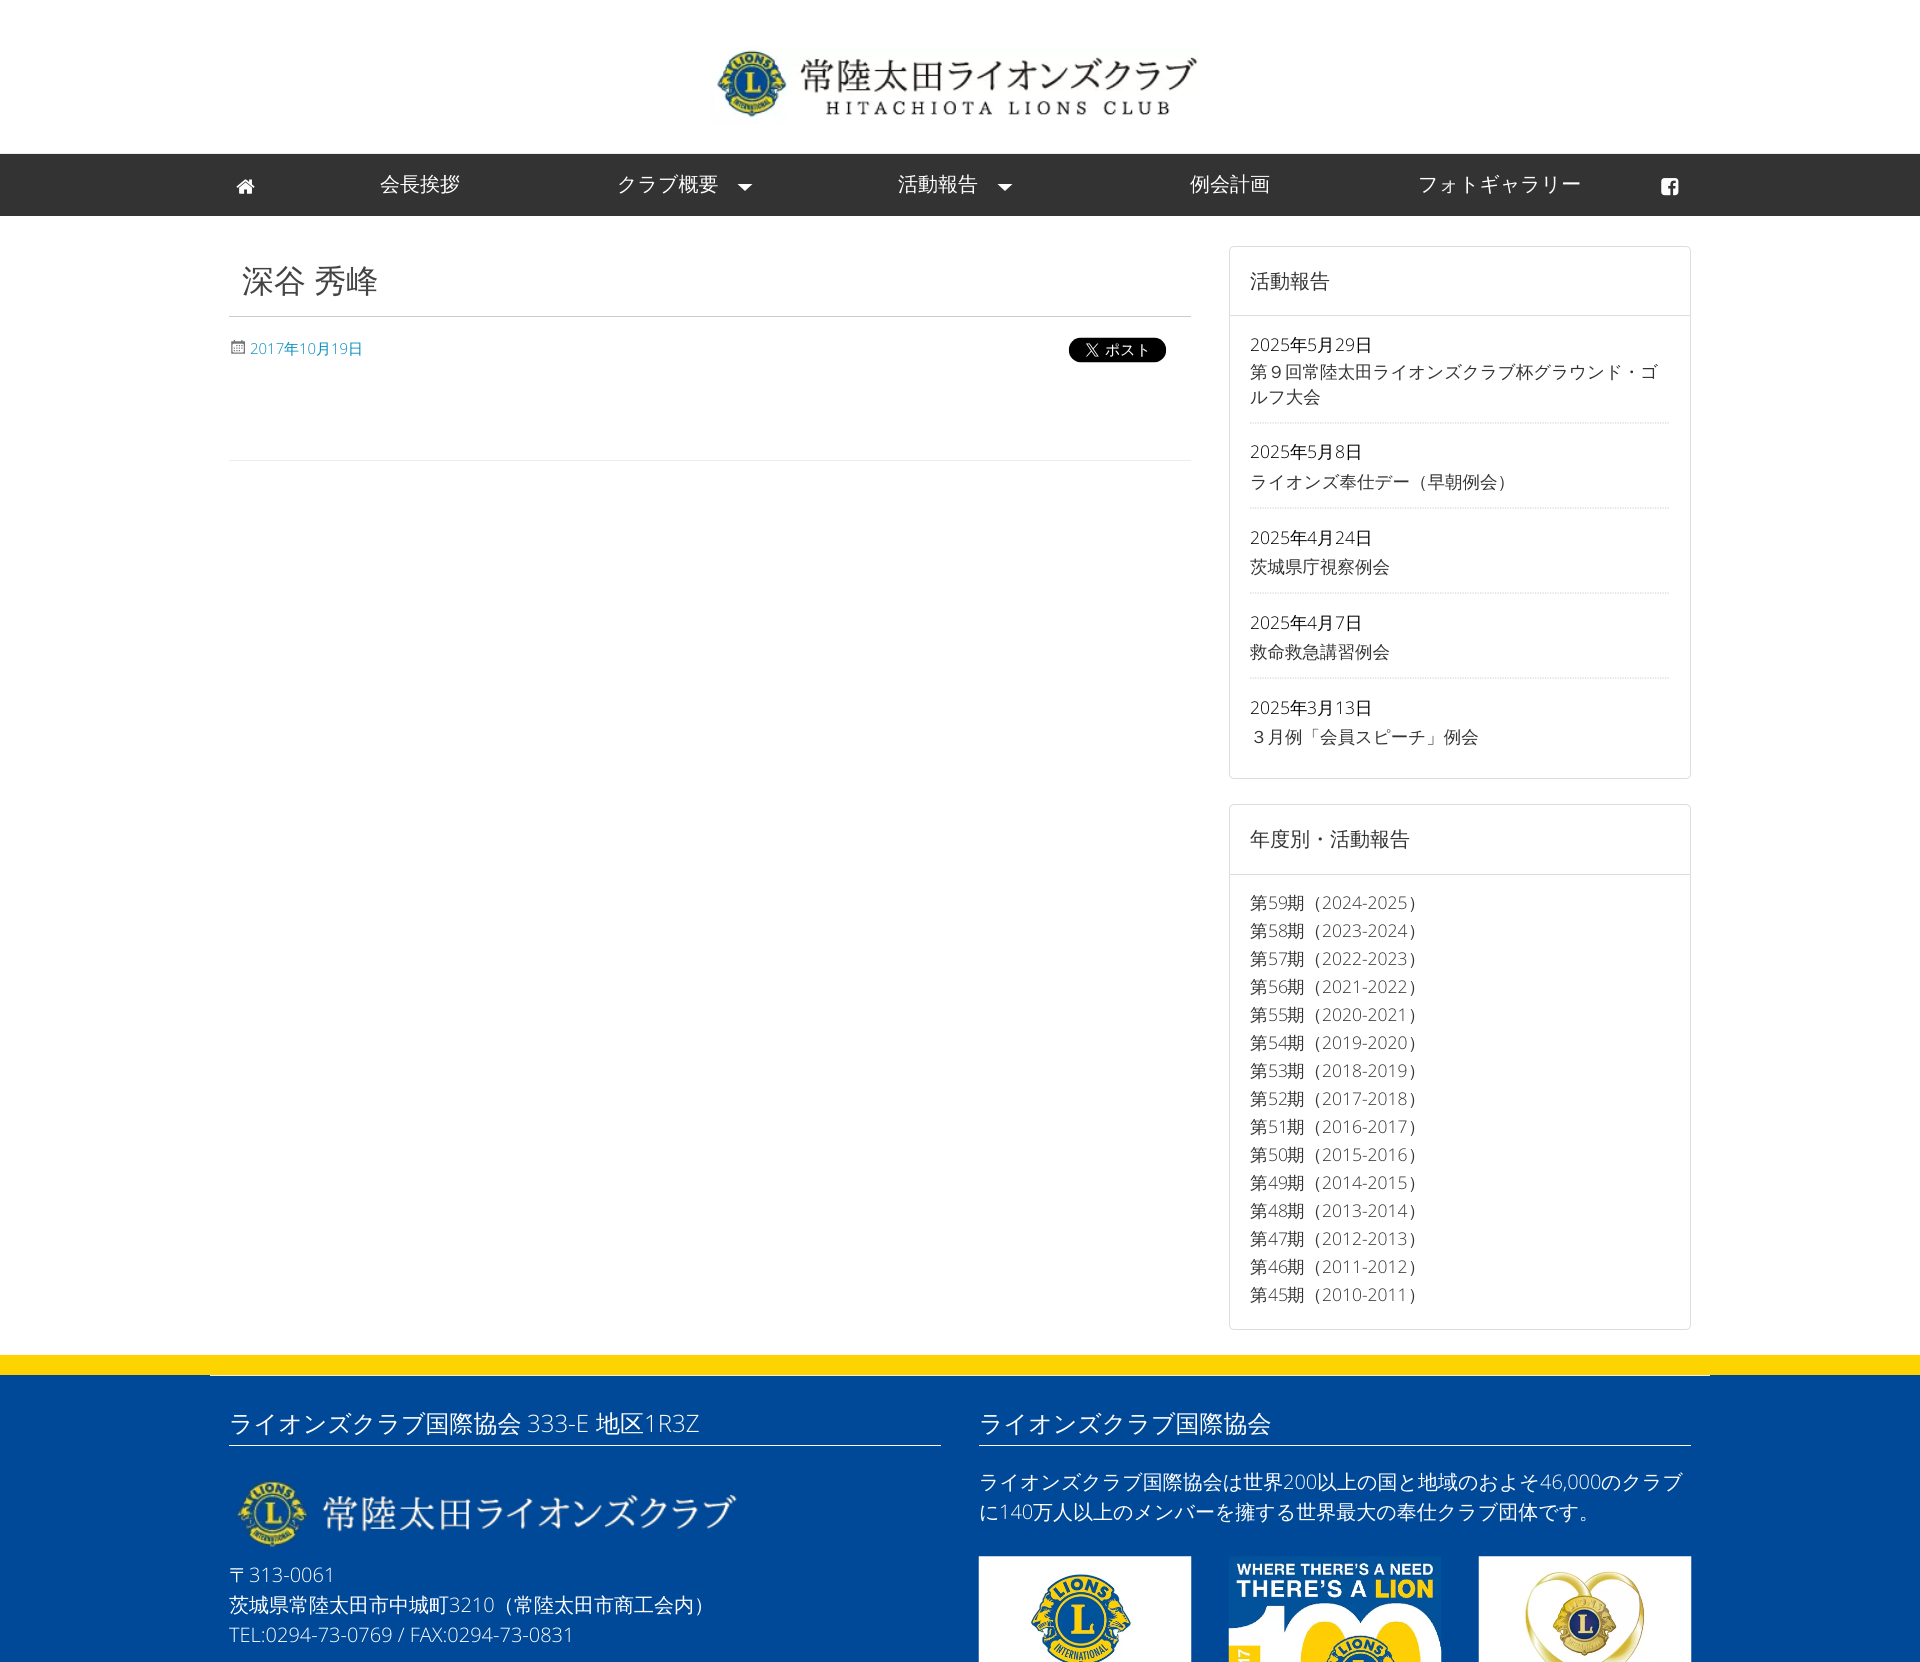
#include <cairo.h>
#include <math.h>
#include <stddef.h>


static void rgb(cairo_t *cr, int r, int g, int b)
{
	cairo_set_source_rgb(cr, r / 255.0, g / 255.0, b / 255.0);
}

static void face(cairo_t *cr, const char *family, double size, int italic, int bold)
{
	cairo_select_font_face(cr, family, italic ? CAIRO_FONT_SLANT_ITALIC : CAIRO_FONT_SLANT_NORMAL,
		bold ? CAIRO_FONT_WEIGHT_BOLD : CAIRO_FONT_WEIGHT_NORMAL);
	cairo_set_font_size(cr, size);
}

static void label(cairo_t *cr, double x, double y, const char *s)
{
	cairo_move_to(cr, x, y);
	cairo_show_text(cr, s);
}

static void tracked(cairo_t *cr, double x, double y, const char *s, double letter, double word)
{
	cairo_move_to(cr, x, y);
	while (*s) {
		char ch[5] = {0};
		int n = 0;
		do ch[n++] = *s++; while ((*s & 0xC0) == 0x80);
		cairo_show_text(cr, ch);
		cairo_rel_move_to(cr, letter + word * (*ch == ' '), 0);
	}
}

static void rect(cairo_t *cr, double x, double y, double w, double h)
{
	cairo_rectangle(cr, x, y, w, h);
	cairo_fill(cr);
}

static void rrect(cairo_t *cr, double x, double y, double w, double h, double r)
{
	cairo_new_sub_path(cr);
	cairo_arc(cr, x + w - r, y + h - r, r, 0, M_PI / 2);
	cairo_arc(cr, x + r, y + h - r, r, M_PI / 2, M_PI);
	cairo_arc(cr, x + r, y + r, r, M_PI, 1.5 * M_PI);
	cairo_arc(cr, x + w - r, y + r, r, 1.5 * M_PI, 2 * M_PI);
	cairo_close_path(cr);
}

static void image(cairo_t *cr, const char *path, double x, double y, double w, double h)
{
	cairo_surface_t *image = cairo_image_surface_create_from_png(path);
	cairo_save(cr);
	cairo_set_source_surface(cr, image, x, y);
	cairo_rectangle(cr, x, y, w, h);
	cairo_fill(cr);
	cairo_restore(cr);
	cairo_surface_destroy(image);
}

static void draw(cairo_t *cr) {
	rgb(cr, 255, 255, 255);
	cairo_paint(cr);
	rgb(cr, 237, 237, 237);
	rect(cr, 0, 153, 1920, 1);
	image(cr, "image0.png", 710, 47, 489, 77);
	rgb(cr, 51, 51, 51);
	rect(cr, 0, 154, 1920, 62);
	image(cr, "image1.png", 236, 179, 19, 15);
	face(cr, "WenQuanYi Zen Hei Medium", 20, 0, 0);
	rgb(cr, 255, 255, 255);
	label(cr, 380, 191, "会長挨拶");
	label(cr, 617, 191, "クラブ概要");
	cairo_new_path(cr);
	cairo_move_to(cr, 737.5, 184);
	cairo_line_to(cr, 752.5, 184);
	cairo_line_to(cr, 745, 191);
	cairo_close_path(cr);
	cairo_fill(cr);
	label(cr, 898, 191, "活動報告");
	cairo_new_path(cr);
	cairo_move_to(cr, 997.5, 184);
	cairo_line_to(cr, 1012.5, 184);
	cairo_line_to(cr, 1005, 191);
	cairo_close_path(cr);
	cairo_fill(cr);
	label(cr, 1190, 191, "例会計画");
	label(cr, 1418, 191, "フォトギャラリー");
	image(cr, "image2.png", 1661, 178, 18, 18);
	rgb(cr, 237, 237, 237);
	rect(cr, 229, 460, 962, 1);
	rgb(cr, 204, 204, 204);
	rect(cr, 229, 316, 962, 1);
	face(cr, "WenQuanYi Zen Hei Medium", 32, 0, 0);
	rgb(cr, 68, 68, 68);
	tracked(cr, 242, 292, "深谷 秀峰", 0, -1);
	image(cr, "image3.png", 231, 340, 14, 14);
	face(cr, "Open Sans Light", 15, 0, 0);
	rgb(cr, 0, 140, 186);
	label(cr, 250, 354, "2017");
	face(cr, "WenQuanYi Zen Hei Medium", 15, 0, 0);
	label(cr, 284, 354, "年");
	face(cr, "Open Sans Light", 15, 0, 0);
	label(cr, 299, 354, "10");
	face(cr, "WenQuanYi Zen Hei Medium", 15, 0, 0);
	label(cr, 316, 354, "月");
	face(cr, "Open Sans Light", 15, 0, 0);
	label(cr, 331, 354, "19");
	face(cr, "WenQuanYi Zen Hei Medium", 15, 0, 0);
	label(cr, 348, 354, "日");
	image(cr, "image4.png", 1068, 337, 99, 26);
	rrect(cr, 1229.5, 246.5, 461, 532, 4.5);
	rgb(cr, 221, 221, 221);
	cairo_set_line_width(cr, 1);
	cairo_stroke(cr);
	rect(cr, 1230, 315, 460, 1);
	face(cr, "WenQuanYi Zen Hei Medium", 20, 0, 0);
	rgb(cr, 51, 51, 51);
	label(cr, 1250, 288, "活動報告");
	cairo_new_path(cr);
	cairo_move_to(cr, 1250, 423);
	cairo_line_to(cr, 1670, 423);
	rgb(cr, 214, 214, 214);
	cairo_set_line_width(cr, 1.2);
	cairo_set_dash(cr, (double[]){1.25, 1.25}, 2, 0);
	cairo_stroke(cr);
	face(cr, "Open Sans Light", 17.5, 0, 0);
	rgb(cr, 0, 0, 0);
	label(cr, 1250, 351, "2025");
	face(cr, "WenQuanYi Zen Hei Medium", 17.5, 0, 0);
	label(cr, 1290, 351, "年");
	face(cr, "Open Sans Light", 17.5, 0, 0);
	label(cr, 1307, 351, "5");
	face(cr, "WenQuanYi Zen Hei Medium", 17.5, 0, 0);
	label(cr, 1317, 351, "月");
	face(cr, "Open Sans Light", 17.5, 0, 0);
	label(cr, 1335, 351, "29");
	face(cr, "WenQuanYi Zen Hei Medium", 17.5, 0, 0);
	label(cr, 1355, 351, "日");
	rgb(cr, 51, 51, 51);
	label(cr, 1250, 378, "第９回常陸太田ライオンズクラブ杯グラウンド・ゴ");
	label(cr, 1250, 403, "ルフ大会");
	cairo_new_path(cr);
	cairo_move_to(cr, 1250, 508);
	cairo_line_to(cr, 1670, 508);
	rgb(cr, 214, 214, 214);
	cairo_stroke(cr);
	face(cr, "Open Sans Light", 17.5, 0, 0);
	rgb(cr, 0, 0, 0);
	label(cr, 1250, 458, "2025");
	face(cr, "WenQuanYi Zen Hei Medium", 17.5, 0, 0);
	label(cr, 1290, 458, "年");
	face(cr, "Open Sans Light", 17.5, 0, 0);
	label(cr, 1307, 458, "5");
	face(cr, "WenQuanYi Zen Hei Medium", 17.5, 0, 0);
	label(cr, 1317, 458, "月");
	face(cr, "Open Sans Light", 17.5, 0, 0);
	label(cr, 1335, 458, "8");
	face(cr, "WenQuanYi Zen Hei Medium", 17.5, 0, 0);
	label(cr, 1345, 458, "日");
	rgb(cr, 51, 51, 51);
	label(cr, 1250, 488, "ライオンズ奉仕デー（早朝例会）");
	cairo_new_path(cr);
	cairo_move_to(cr, 1250, 593);
	cairo_line_to(cr, 1670, 593);
	rgb(cr, 214, 214, 214);
	cairo_stroke(cr);
	face(cr, "Open Sans Light", 17.5, 0, 0);
	rgb(cr, 0, 0, 0);
	label(cr, 1250, 544, "2025");
	face(cr, "WenQuanYi Zen Hei Medium", 17.5, 0, 0);
	label(cr, 1290, 544, "年");
	face(cr, "Open Sans Light", 17.5, 0, 0);
	label(cr, 1307, 544, "4");
	face(cr, "WenQuanYi Zen Hei Medium", 17.5, 0, 0);
	label(cr, 1317, 544, "月");
	face(cr, "Open Sans Light", 17.5, 0, 0);
	label(cr, 1335, 544, "24");
	face(cr, "WenQuanYi Zen Hei Medium", 17.5, 0, 0);
	label(cr, 1355, 544, "日");
	rgb(cr, 51, 51, 51);
	label(cr, 1250, 573, "茨城県庁視察例会");
	cairo_new_path(cr);
	cairo_move_to(cr, 1250, 678);
	cairo_line_to(cr, 1670, 678);
	rgb(cr, 214, 214, 214);
	cairo_stroke(cr);
	face(cr, "Open Sans Light", 17.5, 0, 0);
	rgb(cr, 0, 0, 0);
	label(cr, 1250, 629, "2025");
	face(cr, "WenQuanYi Zen Hei Medium", 17.5, 0, 0);
	label(cr, 1290, 629, "年");
	face(cr, "Open Sans Light", 17.5, 0, 0);
	label(cr, 1307, 629, "4");
	face(cr, "WenQuanYi Zen Hei Medium", 17.5, 0, 0);
	label(cr, 1317, 629, "月");
	face(cr, "Open Sans Light", 17.5, 0, 0);
	label(cr, 1335, 629, "7");
	face(cr, "WenQuanYi Zen Hei Medium", 17.5, 0, 0);
	label(cr, 1345, 629, "日");
	rgb(cr, 51, 51, 51);
	label(cr, 1250, 658, "救命救急講習例会");
	face(cr, "Open Sans Light", 17.5, 0, 0);
	rgb(cr, 0, 0, 0);
	label(cr, 1250, 714, "2025");
	face(cr, "WenQuanYi Zen Hei Medium", 17.5, 0, 0);
	label(cr, 1290, 714, "年");
	face(cr, "Open Sans Light", 17.5, 0, 0);
	label(cr, 1307, 714, "3");
	face(cr, "WenQuanYi Zen Hei Medium", 17.5, 0, 0);
	label(cr, 1317, 714, "月");
	face(cr, "Open Sans Light", 17.5, 0, 0);
	label(cr, 1335, 714, "13");
	face(cr, "WenQuanYi Zen Hei Medium", 17.5, 0, 0);
	label(cr, 1355, 714, "日");
	rgb(cr, 51, 51, 51);
	label(cr, 1250, 743, "３月例「会員スピーチ」例会");
	rrect(cr, 1229.5, 804.5, 461, 525, 4.5);
	rgb(cr, 221, 221, 221);
	cairo_set_line_width(cr, 1);
	cairo_set_dash(cr, NULL, 0, 0);
	cairo_stroke(cr);
	rect(cr, 1230, 874, 460, 1);
	face(cr, "WenQuanYi Zen Hei Medium", 20, 0, 0);
	rgb(cr, 51, 51, 51);
	label(cr, 1250, 846, "年度別・活動報告");
	face(cr, "WenQuanYi Zen Hei Medium", 17.5, 0, 0);
	label(cr, 1250, 909, "第");
	face(cr, "Open Sans Light", 17.5, 0, 0);
	label(cr, 1268, 909, "59");
	face(cr, "WenQuanYi Zen Hei Medium", 17.5, 0, 0);
	label(cr, 1287, 909, "期（");
	face(cr, "Open Sans Light", 17.5, 0, 0);
	label(cr, 1322, 909, "2024-2025");
	face(cr, "WenQuanYi Zen Hei Medium", 17.5, 0, 0);
	label(cr, 1408, 909, "）");
	label(cr, 1250, 937, "第");
	face(cr, "Open Sans Light", 17.5, 0, 0);
	label(cr, 1268, 937, "58");
	face(cr, "WenQuanYi Zen Hei Medium", 17.5, 0, 0);
	label(cr, 1287, 937, "期（");
	face(cr, "Open Sans Light", 17.5, 0, 0);
	label(cr, 1322, 937, "2023-2024");
	face(cr, "WenQuanYi Zen Hei Medium", 17.5, 0, 0);
	label(cr, 1408, 937, "）");
	label(cr, 1250, 965, "第");
	face(cr, "Open Sans Light", 17.5, 0, 0);
	label(cr, 1268, 965, "57");
	face(cr, "WenQuanYi Zen Hei Medium", 17.5, 0, 0);
	label(cr, 1287, 965, "期（");
	face(cr, "Open Sans Light", 17.5, 0, 0);
	label(cr, 1322, 965, "2022-2023");
	face(cr, "WenQuanYi Zen Hei Medium", 17.5, 0, 0);
	label(cr, 1408, 965, "）");
	label(cr, 1250, 993, "第");
	face(cr, "Open Sans Light", 17.5, 0, 0);
	label(cr, 1268, 993, "56");
	face(cr, "WenQuanYi Zen Hei Medium", 17.5, 0, 0);
	label(cr, 1287, 993, "期（");
	face(cr, "Open Sans Light", 17.5, 0, 0);
	label(cr, 1322, 993, "2021-2022");
	face(cr, "WenQuanYi Zen Hei Medium", 17.5, 0, 0);
	label(cr, 1408, 993, "）");
	label(cr, 1250, 1021, "第");
	face(cr, "Open Sans Light", 17.5, 0, 0);
	label(cr, 1268, 1021, "55");
	face(cr, "WenQuanYi Zen Hei Medium", 17.5, 0, 0);
	label(cr, 1287, 1021, "期（");
	face(cr, "Open Sans Light", 17.5, 0, 0);
	label(cr, 1322, 1021, "2020-2021");
	face(cr, "WenQuanYi Zen Hei Medium", 17.5, 0, 0);
	label(cr, 1408, 1021, "）");
	label(cr, 1250, 1049, "第");
	face(cr, "Open Sans Light", 17.5, 0, 0);
	label(cr, 1268, 1049, "54");
	face(cr, "WenQuanYi Zen Hei Medium", 17.5, 0, 0);
	label(cr, 1287, 1049, "期（");
	face(cr, "Open Sans Light", 17.5, 0, 0);
	label(cr, 1322, 1049, "2019-2020");
	face(cr, "WenQuanYi Zen Hei Medium", 17.5, 0, 0);
	label(cr, 1408, 1049, "）");
	label(cr, 1250, 1077, "第");
	face(cr, "Open Sans Light", 17.5, 0, 0);
	label(cr, 1268, 1077, "53");
	face(cr, "WenQuanYi Zen Hei Medium", 17.5, 0, 0);
	label(cr, 1287, 1077, "期（");
	face(cr, "Open Sans Light", 17.5, 0, 0);
	label(cr, 1322, 1077, "2018-2019");
	face(cr, "WenQuanYi Zen Hei Medium", 17.5, 0, 0);
	label(cr, 1408, 1077, "）");
	label(cr, 1250, 1105, "第");
	face(cr, "Open Sans Light", 17.5, 0, 0);
	label(cr, 1268, 1105, "52");
	face(cr, "WenQuanYi Zen Hei Medium", 17.5, 0, 0);
	label(cr, 1287, 1105, "期（");
	face(cr, "Open Sans Light", 17.5, 0, 0);
	label(cr, 1322, 1105, "2017-2018");
	face(cr, "WenQuanYi Zen Hei Medium", 17.5, 0, 0);
	label(cr, 1408, 1105, "）");
	label(cr, 1250, 1133, "第");
	face(cr, "Open Sans Light", 17.5, 0, 0);
	label(cr, 1268, 1133, "51");
	face(cr, "WenQuanYi Zen Hei Medium", 17.5, 0, 0);
	label(cr, 1287, 1133, "期（");
	face(cr, "Open Sans Light", 17.5, 0, 0);
	label(cr, 1322, 1133, "2016-2017");
	face(cr, "WenQuanYi Zen Hei Medium", 17.5, 0, 0);
	label(cr, 1408, 1133, "）");
	label(cr, 1250, 1161, "第");
	face(cr, "Open Sans Light", 17.5, 0, 0);
	label(cr, 1268, 1161, "50");
	face(cr, "WenQuanYi Zen Hei Medium", 17.5, 0, 0);
	label(cr, 1287, 1161, "期（");
	face(cr, "Open Sans Light", 17.5, 0, 0);
	label(cr, 1322, 1161, "2015-2016");
	face(cr, "WenQuanYi Zen Hei Medium", 17.5, 0, 0);
	label(cr, 1408, 1161, "）");
	label(cr, 1250, 1189, "第");
	face(cr, "Open Sans Light", 17.5, 0, 0);
	label(cr, 1268, 1189, "49");
	face(cr, "WenQuanYi Zen Hei Medium", 17.5, 0, 0);
	label(cr, 1287, 1189, "期（");
	face(cr, "Open Sans Light", 17.5, 0, 0);
	label(cr, 1322, 1189, "2014-2015");
	face(cr, "WenQuanYi Zen Hei Medium", 17.5, 0, 0);
	label(cr, 1408, 1189, "）");
	label(cr, 1250, 1217, "第");
	face(cr, "Open Sans Light", 17.5, 0, 0);
	label(cr, 1268, 1217, "48");
	face(cr, "WenQuanYi Zen Hei Medium", 17.5, 0, 0);
	label(cr, 1287, 1217, "期（");
	face(cr, "Open Sans Light", 17.5, 0, 0);
	label(cr, 1322, 1217, "2013-2014");
	face(cr, "WenQuanYi Zen Hei Medium", 17.5, 0, 0);
	label(cr, 1408, 1217, "）");
	label(cr, 1250, 1245, "第");
	face(cr, "Open Sans Light", 17.5, 0, 0);
	label(cr, 1268, 1245, "47");
	face(cr, "WenQuanYi Zen Hei Medium", 17.5, 0, 0);
	label(cr, 1287, 1245, "期（");
	face(cr, "Open Sans Light", 17.5, 0, 0);
	label(cr, 1322, 1245, "2012-2013");
	face(cr, "WenQuanYi Zen Hei Medium", 17.5, 0, 0);
	label(cr, 1408, 1245, "）");
	label(cr, 1250, 1273, "第");
	face(cr, "Open Sans Light", 17.5, 0, 0);
	label(cr, 1268, 1273, "46");
	face(cr, "WenQuanYi Zen Hei Medium", 17.5, 0, 0);
	label(cr, 1287, 1273, "期（");
	face(cr, "Open Sans Light", 17.5, 0, 0);
	label(cr, 1322, 1273, "2011-2012");
	face(cr, "WenQuanYi Zen Hei Medium", 17.5, 0, 0);
	label(cr, 1408, 1273, "）");
	label(cr, 1250, 1301, "第");
	face(cr, "Open Sans Light", 17.5, 0, 0);
	label(cr, 1268, 1301, "45");
	face(cr, "WenQuanYi Zen Hei Medium", 17.5, 0, 0);
	label(cr, 1287, 1301, "期（");
	face(cr, "Open Sans Light", 17.5, 0, 0);
	label(cr, 1322, 1301, "2010-2011");
	face(cr, "WenQuanYi Zen Hei Medium", 17.5, 0, 0);
	label(cr, 1408, 1301, "）");
	rgb(cr, 0, 73, 152);
	rect(cr, 0, 1375, 1920, 287);
	rgb(cr, 254, 212, 0);
	rect(cr, 0, 1355, 1920, 20);
	rgb(cr, 237, 237, 237);
	rect(cr, 210, 1375, 1500, 1);
	rgb(cr, 255, 255, 255);
	rect(cr, 229, 1445, 712, 1);
	face(cr, "WenQuanYi Zen Hei Medium", 24, 0, 0);
	label(cr, 229, 1432, "ライオンズクラブ国際協会");
	face(cr, "Open Sans Light", 24, 0, 0);
	label(cr, 527, 1432, "333-E");
	face(cr, "WenQuanYi Zen Hei Medium", 24, 0, 0);
	label(cr, 596, 1432, "地区");
	face(cr, "Open Sans Light", 24, 0, 0);
	label(cr, 644, 1432, "1R3Z");
	image(cr, "image5.png", 236, 1480, 501, 69);
	face(cr, "WenQuanYi Zen Hei Medium", 20, 0, 0);
	label(cr, 229, 1582, "〒");
	face(cr, "Open Sans Light", 20, 0, 0);
	label(cr, 249, 1582, "313-0061");
	face(cr, "WenQuanYi Zen Hei Medium", 20, 0, 0);
	label(cr, 229, 1612, "茨城県常陸太田市中城町");
	face(cr, "Open Sans Light", 20, 0, 0);
	label(cr, 449, 1612, "3210");
	face(cr, "WenQuanYi Zen Hei Medium", 20, 0, 0);
	label(cr, 494, 1612, "（常陸太田市商工会内）");
	face(cr, "Open Sans Light", 20, 0, 0);
	label(cr, 229, 1642, "TEL:0294-73-0769 / FAX:0294-73-0831");
	rect(cr, 979, 1445, 712, 1);
	face(cr, "WenQuanYi Zen Hei Medium", 24, 0, 0);
	label(cr, 979, 1432, "ライオンズクラブ国際協会");
	face(cr, "WenQuanYi Zen Hei Medium", 20, 0, 0);
	label(cr, 979, 1489, "ライオンズクラブ国際協会は世界");
	face(cr, "Open Sans Light", 20, 0, 0);
	label(cr, 1283, 1489, "200");
	face(cr, "WenQuanYi Zen Hei Medium", 20, 0, 0);
	label(cr, 1317, 1489, "以上の国と地域のおよそ");
	face(cr, "Open Sans Light", 20, 0, 0);
	label(cr, 1540, 1489, "46,000");
	face(cr, "WenQuanYi Zen Hei Medium", 20, 0, 0);
	label(cr, 1601, 1489, "のクラブ");
	label(cr, 979, 1519, "に");
	face(cr, "Open Sans Light", 20, 0, 0);
	label(cr, 999, 1519, "140");
	face(cr, "WenQuanYi Zen Hei Medium", 20, 0, 0);
	label(cr, 1033, 1519, "万人以上のメンバーを擁する世界最大の奉仕クラブ団体です。");
	image(cr, "image6.png", 978, 1556, 214, 106);
	image(cr, "image7.png", 1228, 1556, 214, 106);
	image(cr, "image8.png", 1478, 1556, 214, 106);
}

int main(void) {
	cairo_surface_t *surface = cairo_image_surface_create(CAIRO_FORMAT_RGB24, 1920, 1662);
	cairo_t *cr = cairo_create(surface);
	cairo_font_options_t *options = cairo_font_options_create();
	cairo_font_options_set_hint_metrics(options, CAIRO_HINT_METRICS_OFF);
	cairo_font_options_set_hint_style(options, CAIRO_HINT_STYLE_NONE);
	cairo_set_font_options(cr, options);
	cairo_set_miter_limit(cr, 4);
	draw(cr);
	cairo_surface_write_to_png(surface, "render.png");
	cairo_font_options_destroy(options);
	cairo_destroy(cr);
	cairo_surface_destroy(surface);
	return 0;
}
